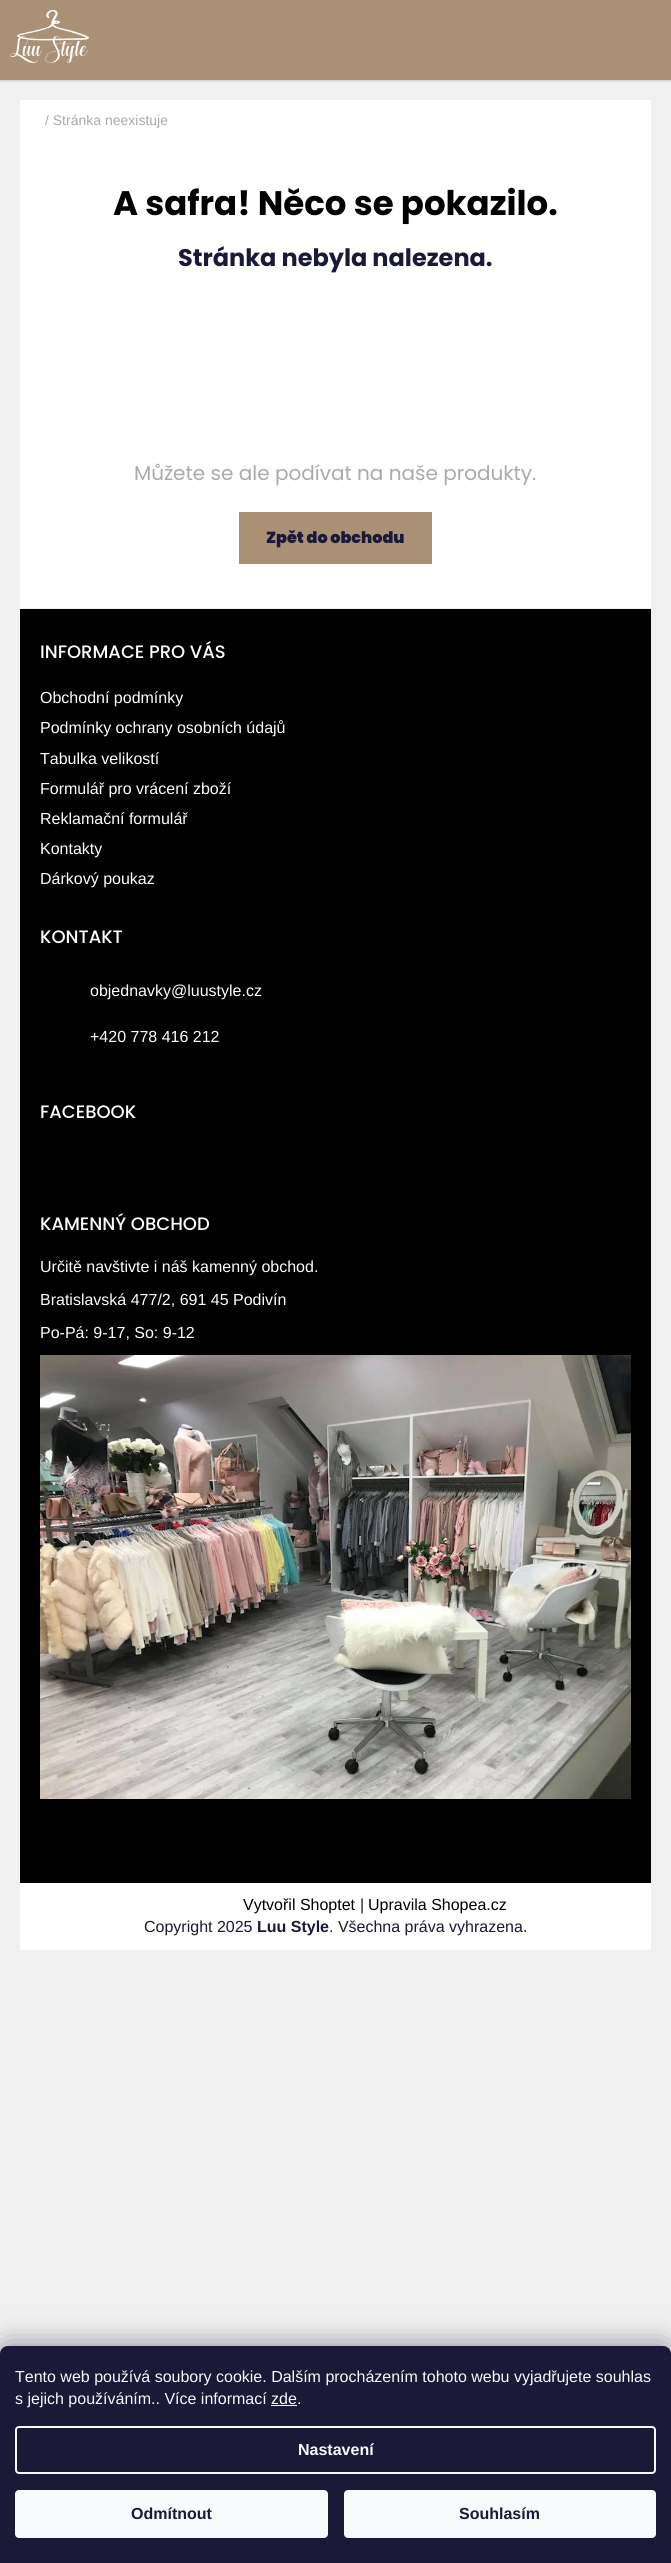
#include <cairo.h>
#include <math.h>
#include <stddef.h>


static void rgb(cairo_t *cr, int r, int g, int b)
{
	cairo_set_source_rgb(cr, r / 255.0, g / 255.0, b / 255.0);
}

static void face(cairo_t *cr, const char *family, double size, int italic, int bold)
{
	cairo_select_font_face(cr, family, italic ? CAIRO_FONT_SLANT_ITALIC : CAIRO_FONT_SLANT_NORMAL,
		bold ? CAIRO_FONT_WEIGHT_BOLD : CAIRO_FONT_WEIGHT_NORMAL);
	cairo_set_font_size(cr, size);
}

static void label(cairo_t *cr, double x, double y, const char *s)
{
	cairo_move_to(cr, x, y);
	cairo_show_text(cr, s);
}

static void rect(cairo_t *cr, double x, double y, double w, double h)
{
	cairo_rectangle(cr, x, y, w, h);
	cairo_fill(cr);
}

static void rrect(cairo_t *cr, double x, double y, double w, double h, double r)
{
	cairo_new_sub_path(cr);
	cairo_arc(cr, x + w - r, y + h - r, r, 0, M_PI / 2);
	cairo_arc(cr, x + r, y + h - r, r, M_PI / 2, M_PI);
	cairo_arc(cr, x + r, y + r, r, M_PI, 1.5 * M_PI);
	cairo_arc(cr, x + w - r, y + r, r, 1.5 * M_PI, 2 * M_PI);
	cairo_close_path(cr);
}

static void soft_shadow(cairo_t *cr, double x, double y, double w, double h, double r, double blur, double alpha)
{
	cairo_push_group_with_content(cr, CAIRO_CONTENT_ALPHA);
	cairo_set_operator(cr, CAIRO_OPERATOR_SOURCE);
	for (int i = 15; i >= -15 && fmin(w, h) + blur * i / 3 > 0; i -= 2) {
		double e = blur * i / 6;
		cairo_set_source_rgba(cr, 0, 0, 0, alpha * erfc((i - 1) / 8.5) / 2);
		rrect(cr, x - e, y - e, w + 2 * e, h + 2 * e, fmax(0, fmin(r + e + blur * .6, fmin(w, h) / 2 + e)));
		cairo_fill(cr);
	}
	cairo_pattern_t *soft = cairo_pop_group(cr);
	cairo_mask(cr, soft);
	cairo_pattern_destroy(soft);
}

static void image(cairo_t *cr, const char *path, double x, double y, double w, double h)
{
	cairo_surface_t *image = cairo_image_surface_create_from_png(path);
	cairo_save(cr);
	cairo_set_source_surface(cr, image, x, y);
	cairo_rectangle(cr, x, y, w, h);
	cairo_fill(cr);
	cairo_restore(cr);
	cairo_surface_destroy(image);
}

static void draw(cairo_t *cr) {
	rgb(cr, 240, 240, 240);
	cairo_paint(cr);
	rgb(cr, 0, 0, 0);
	soft_shadow(cr, 0, 1, 671, 80, 0, 1, 0.16);
	rgb(cr, 170, 145, 117);
	rect(cr, 0, 0, 671, 80);
	image(cr, "image0.png", 10, 10, 79, 53);
	rgb(cr, 255, 255, 255);
	rect(cr, 20, 100, 631, 508);
	face(cr, "Liberation Sans", 14, 0, 0);
	rgb(cr, 170, 170, 170);
	label(cr, 45, 125, "/ Stránka neexistuje");
	face(cr, "Poppins", 34, 0, 1);
	rgb(cr, 0, 0, 0);
	label(cr, 113, 215, "A safra! Něco se pokazilo.");
	face(cr, "Poppins", 24, 0, 1);
	rgb(cr, 26, 25, 55);
	label(cr, 178, 266, "Stránka nebyla nalezena.");
	face(cr, "Poppins", 20, 0, 0);
	rgb(cr, 170, 170, 170);
	label(cr, 134, 480, "Můžete se ale podívat na naše produkty.");
	rgb(cr, 170, 145, 117);
	rect(cr, 239, 512, 193, 52);
	face(cr, "Poppins Black", 16, 0, 0);
	rgb(cr, 26, 25, 55);
	label(cr, 266, 543, "Zpět do obchodu");
	rgb(cr, 0, 0, 0);
	rect(cr, 20, 609, 631, 1274);
	face(cr, "Poppins Medium", 18, 0, 0);
	rgb(cr, 255, 255, 255);
	label(cr, 40, 658, "INFORMACE PRO VÁS");
	face(cr, "Liberation Sans", 16, 0, 0);
	label(cr, 40, 703, "Obchodní podmínky");
	label(cr, 40, 733, "Podmínky ochrany osobních údajů");
	label(cr, 40, 764, "Tabulka velikostí");
	label(cr, 40, 794, "Formulář pro vrácení zboží");
	label(cr, 40, 824, "Reklamační formulář");
	label(cr, 40, 854, "Kontakty");
	label(cr, 40, 884, "Dárkový poukaz");
	face(cr, "Poppins Medium", 18, 0, 0);
	label(cr, 40, 943, "KONTAKT");
	face(cr, "Liberation Sans", 16, 0, 0);
	label(cr, 90, 996, "objednavky@luustyle.cz");
	label(cr, 90, 1042, "+420 778 416 212");
	face(cr, "Poppins Medium", 18, 0, 0);
	label(cr, 40, 1118, "FACEBOOK");
	label(cr, 40, 1230, "KAMENNÝ OBCHOD");
	face(cr, "Liberation Sans", 16, 0, 0);
	label(cr, 40, 1272, "Určitě navštivte i náš kamenný obchod.");
	label(cr, 40, 1305, "Bratislavská 477/2, 691 45 Podivín");
	label(cr, 40, 1338, "Po-Pá: 9-17, So: 9-12");
	image(cr, "image1.png", 40, 1355, 591, 444);
	rect(cr, 20, 1883, 631, 67);
	rgb(cr, 0, 0, 0);
	label(cr, 243, 1910, "Vytvořil Shoptet");
	rgb(cr, 26, 25, 55);
	label(cr, 360, 1910, "|");
	rgb(cr, 0, 0, 0);
	label(cr, 368, 1910, "Upravila Shopea.cz");
	rgb(cr, 26, 25, 55);
	label(cr, 144, 1932, "Copyright 2025");
	face(cr, "Liberation Sans", 16, 0, 1);
	label(cr, 257, 1932, "Luu Style");
	face(cr, "Liberation Sans", 16, 0, 0);
	label(cr, 329, 1932, ". Všechna práva vyhrazena.");
	rgb(cr, 27, 25, 57);
	soft_shadow(cr, 0, 2346, 671, 217, 8, 15, 0.5);
	rgb(cr, 26, 25, 55);
	cairo_new_path(cr);
	cairo_move_to(cr, 8, 2346);
	cairo_line_to(cr, 663, 2346);
	cairo_curve_to(cr, 667.5, 2346, 671, 2349.5, 671, 2354);
	cairo_line_to(cr, 671, 2563);
	cairo_line_to(cr, 0, 2563);
	cairo_line_to(cr, 0, 2354);
	cairo_curve_to(cr, 0, 2349.5, 3.5, 2346, 8, 2346);
	cairo_close_path(cr);
	cairo_fill(cr);
	rgb(cr, 248, 250, 251);
	label(cr, 15, 2382, "Tento web používá soubory cookie. Dalším procházením tohoto webu vyjadřujete souhlas");
	label(cr, 15, 2404, "s jejich používáním.. Více informací zde.");
	rect(cr, 271, 2405, 26, 1);
	rrect(cr, 16, 2427, 639, 46, 3);
	cairo_stroke(cr);
	face(cr, "Liberation Sans", 16, 0, 1);
	label(cr, 298, 2455, "Nastavení");
	rrect(cr, 15, 2490, 313, 48, 4);
	cairo_fill(cr);
	rgb(cr, 26, 25, 55);
	label(cr, 131, 2519, "Odmítnout");
	rgb(cr, 248, 250, 251);
	rrect(cr, 344, 2490, 312, 48, 4);
	cairo_fill(cr);
	rgb(cr, 26, 25, 55);
	label(cr, 459, 2519, "Souhlasím");
}

int main(void) {
	cairo_surface_t *surface = cairo_image_surface_create(CAIRO_FORMAT_RGB24, 671, 2563);
	cairo_t *cr = cairo_create(surface);
	cairo_font_options_t *options = cairo_font_options_create();
	cairo_font_options_set_hint_metrics(options, CAIRO_HINT_METRICS_OFF);
	cairo_font_options_set_hint_style(options, CAIRO_HINT_STYLE_NONE);
	cairo_set_font_options(cr, options);
	cairo_set_miter_limit(cr, 4);
	draw(cr);
	cairo_surface_write_to_png(surface, "render.png");
	cairo_font_options_destroy(options);
	cairo_destroy(cr);
	cairo_surface_destroy(surface);
	return 0;
}
